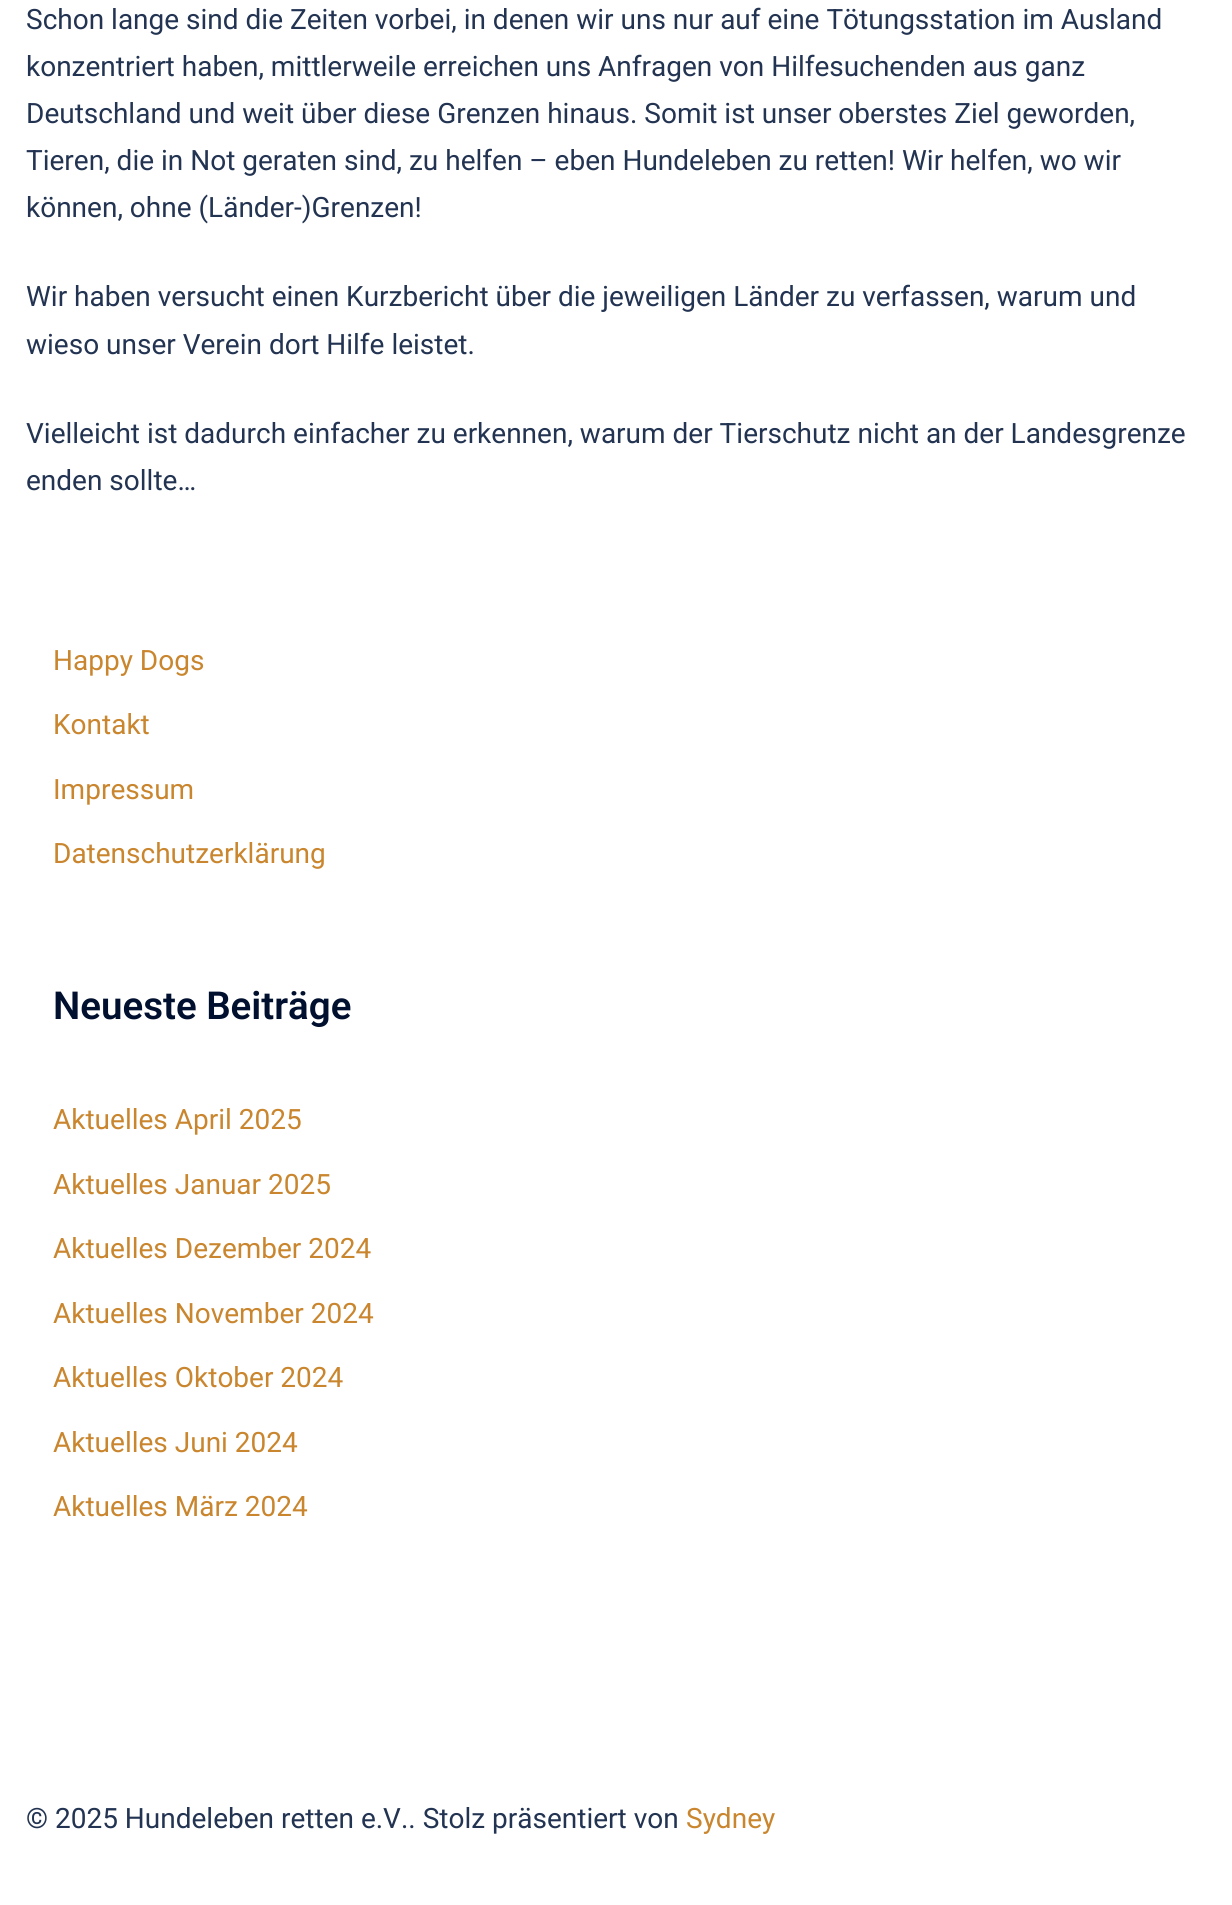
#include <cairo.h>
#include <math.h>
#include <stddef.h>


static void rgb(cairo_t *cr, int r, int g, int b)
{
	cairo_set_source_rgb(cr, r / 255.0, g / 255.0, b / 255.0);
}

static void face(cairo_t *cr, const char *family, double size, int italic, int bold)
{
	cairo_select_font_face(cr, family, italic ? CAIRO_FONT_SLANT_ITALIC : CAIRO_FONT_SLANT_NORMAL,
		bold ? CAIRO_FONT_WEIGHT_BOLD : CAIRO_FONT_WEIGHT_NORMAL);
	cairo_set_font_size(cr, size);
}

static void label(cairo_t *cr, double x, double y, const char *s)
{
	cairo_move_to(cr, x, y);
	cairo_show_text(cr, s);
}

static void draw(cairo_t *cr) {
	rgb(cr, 255, 255, 255);
	cairo_paint(cr);
	face(cr, "Roboto", 28, 0, 0);
	rgb(cr, 35, 52, 82);
	label(cr, 26, 29, "Schon lange sind die Zeiten vorbei, in denen wir uns nur auf eine Tötungsstation im Ausland");
	label(cr, 26, 76, "konzentriert haben, mittlerweile erreichen uns Anfragen von Hilfesuchenden aus ganz");
	label(cr, 26, 123, "Deutschland und weit über diese Grenzen hinaus. Somit ist unser oberstes Ziel geworden,");
	label(cr, 26, 170, "Tieren, die in Not geraten sind, zu helfen – eben Hundeleben zu retten! Wir helfen, wo wir");
	label(cr, 26, 217, "können, ohne (Länder-)Grenzen!");
	label(cr, 26, 306, "Wir haben versucht einen Kurzbericht über die jeweiligen Länder zu verfassen, warum und");
	label(cr, 26, 354, "wieso unser Verein dort Hilfe leistet.");
	label(cr, 26, 443, "Vielleicht ist dadurch einfacher zu erkennen, warum der Tierschutz nicht an der Landesgrenze");
	label(cr, 26, 490, "enden sollte…");
	rgb(cr, 201, 134, 46);
	label(cr, 53, 670, "Happy Dogs");
	label(cr, 53, 734, "Kontakt");
	label(cr, 53, 799, "Impressum");
	label(cr, 53, 863, "Datenschutzerklärung");
	face(cr, "Roboto SemiBold", 38.5, 0, 0);
	rgb(cr, 0, 16, 46);
	label(cr, 53, 1019, "Neueste Beiträge");
	face(cr, "Roboto", 28, 0, 0);
	rgb(cr, 201, 134, 46);
	label(cr, 53, 1129, "Aktuelles April 2025");
	label(cr, 53, 1194, "Aktuelles Januar 2025");
	label(cr, 53, 1258, "Aktuelles Dezember 2024");
	label(cr, 53, 1323, "Aktuelles November 2024");
	label(cr, 53, 1387, "Aktuelles Oktober 2024");
	label(cr, 53, 1452, "Aktuelles Juni 2024");
	label(cr, 53, 1516, "Aktuelles März 2024");
	rgb(cr, 35, 52, 82);
	label(cr, 26, 1828, "© 2025 Hundeleben retten e.V.. Stolz präsentiert von");
	rgb(cr, 201, 134, 46);
	label(cr, 686, 1828, "Sydney");
}

int main(void) {
	cairo_surface_t *surface = cairo_image_surface_create(CAIRO_FORMAT_RGB24, 1232, 1905);
	cairo_t *cr = cairo_create(surface);
	cairo_font_options_t *options = cairo_font_options_create();
	cairo_font_options_set_hint_metrics(options, CAIRO_HINT_METRICS_OFF);
	cairo_font_options_set_hint_style(options, CAIRO_HINT_STYLE_NONE);
	cairo_set_font_options(cr, options);
	cairo_set_miter_limit(cr, 4);
	draw(cr);
	cairo_surface_write_to_png(surface, "render.png");
	cairo_font_options_destroy(options);
	cairo_destroy(cr);
	cairo_surface_destroy(surface);
	return 0;
}
